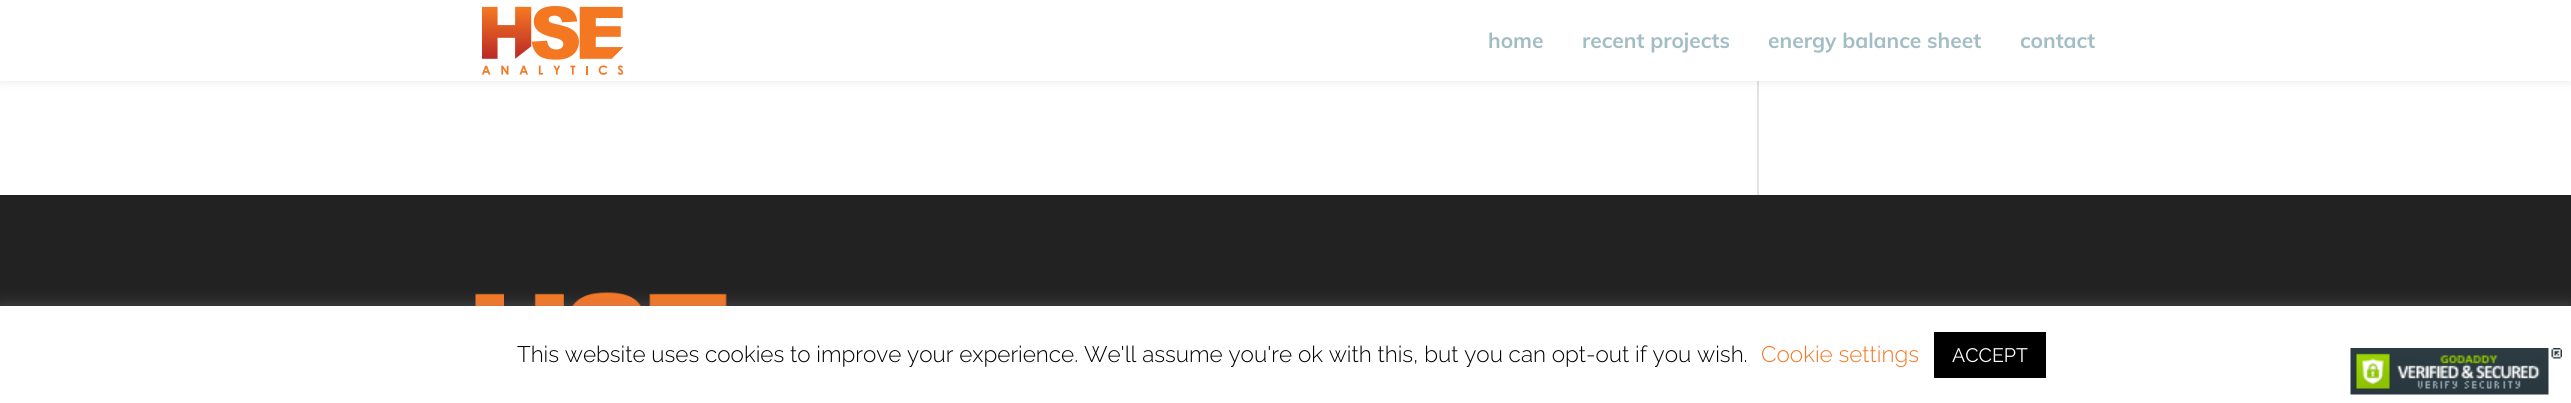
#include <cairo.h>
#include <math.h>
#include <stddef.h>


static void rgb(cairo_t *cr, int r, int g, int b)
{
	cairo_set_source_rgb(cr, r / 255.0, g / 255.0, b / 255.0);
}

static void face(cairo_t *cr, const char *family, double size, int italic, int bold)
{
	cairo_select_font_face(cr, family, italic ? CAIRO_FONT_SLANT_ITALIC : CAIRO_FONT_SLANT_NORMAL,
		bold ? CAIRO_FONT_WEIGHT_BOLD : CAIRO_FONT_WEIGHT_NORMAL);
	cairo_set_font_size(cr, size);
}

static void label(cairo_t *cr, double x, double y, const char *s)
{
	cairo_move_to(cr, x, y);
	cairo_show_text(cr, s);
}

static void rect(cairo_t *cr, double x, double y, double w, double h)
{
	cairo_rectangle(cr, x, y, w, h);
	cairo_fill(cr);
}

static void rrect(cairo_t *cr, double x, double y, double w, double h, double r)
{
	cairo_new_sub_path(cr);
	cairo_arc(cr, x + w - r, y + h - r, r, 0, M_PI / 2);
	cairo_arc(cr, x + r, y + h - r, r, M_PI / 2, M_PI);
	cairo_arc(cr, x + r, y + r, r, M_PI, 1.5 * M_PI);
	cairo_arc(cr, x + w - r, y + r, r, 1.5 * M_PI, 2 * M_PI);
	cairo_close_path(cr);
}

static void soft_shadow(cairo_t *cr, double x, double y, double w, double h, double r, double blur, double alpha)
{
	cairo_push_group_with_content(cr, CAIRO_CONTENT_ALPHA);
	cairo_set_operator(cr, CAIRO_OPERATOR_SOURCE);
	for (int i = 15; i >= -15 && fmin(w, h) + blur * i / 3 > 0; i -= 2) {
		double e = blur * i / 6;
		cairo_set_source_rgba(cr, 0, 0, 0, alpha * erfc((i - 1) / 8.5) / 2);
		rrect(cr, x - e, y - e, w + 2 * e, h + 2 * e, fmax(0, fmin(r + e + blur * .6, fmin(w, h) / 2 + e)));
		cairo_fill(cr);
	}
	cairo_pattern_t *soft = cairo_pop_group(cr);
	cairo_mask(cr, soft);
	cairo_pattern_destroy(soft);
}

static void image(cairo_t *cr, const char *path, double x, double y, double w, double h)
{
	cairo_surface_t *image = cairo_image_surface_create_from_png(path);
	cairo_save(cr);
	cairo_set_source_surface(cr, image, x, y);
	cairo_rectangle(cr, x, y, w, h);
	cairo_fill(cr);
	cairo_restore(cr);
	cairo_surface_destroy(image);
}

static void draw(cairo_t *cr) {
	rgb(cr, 255, 255, 255);
	cairo_paint(cr);
	rgb(cr, 226, 226, 226);
	rect(cr, 1757, 81, 2, 114);
	rgb(cr, 0, 0, 0);
	soft_shadow(cr, 0, 0, 2571, 81, 0, 5, 0.1);
	rgb(cr, 255, 255, 255);
	rect(cr, 0, 0, 2571, 81);
	image(cr, "image0.png", 482, 6, 141, 69);
	face(cr, "Muli", 21, 0, 1);
	rgb(cr, 162, 189, 196);
	label(cr, 1488, 48, "home");
	label(cr, 1582, 48, "recent projects");
	label(cr, 1768, 48, "energy balance sheet");
	label(cr, 2020, 48, "contact");
	rgb(cr, 34, 34, 34);
	rect(cr, 0, 195, 2571, 111);
	image(cr, "image1.png", 475, 292, 252, 14);
	rgb(cr, 172, 171, 171);
	soft_shadow(cr, 0, 305, 2571, 97, 0, 7.5, 0.3);
	rgb(cr, 255, 255, 255);
	rect(cr, 0, 306, 2571, 97);
	face(cr, "Raleway Light", 22.5, 0, 0);
	rgb(cr, 0, 0, 0);
	label(cr, 517, 362, "This website uses cookies to improve your experience. We'll assume you're ok with this, but you can opt-out if you wish.");
	rgb(cr, 244, 118, 33);
	label(cr, 1761, 362, "Cookie settings");
	rgb(cr, 0, 0, 0);
	rect(cr, 1934, 332, 112, 46);
	face(cr, "Raleway", 19.5, 0, 0);
	rgb(cr, 255, 255, 255);
	label(cr, 1952, 362, "ACCEPT");
	image(cr, "image2.png", 2350, 348, 212, 47);
}

int main(void) {
	cairo_surface_t *surface = cairo_image_surface_create(CAIRO_FORMAT_RGB24, 2571, 403);
	cairo_t *cr = cairo_create(surface);
	cairo_font_options_t *options = cairo_font_options_create();
	cairo_font_options_set_hint_metrics(options, CAIRO_HINT_METRICS_OFF);
	cairo_font_options_set_hint_style(options, CAIRO_HINT_STYLE_NONE);
	cairo_set_font_options(cr, options);
	cairo_set_miter_limit(cr, 4);
	draw(cr);
	cairo_surface_write_to_png(surface, "render.png");
	cairo_font_options_destroy(options);
	cairo_destroy(cr);
	cairo_surface_destroy(surface);
	return 0;
}
